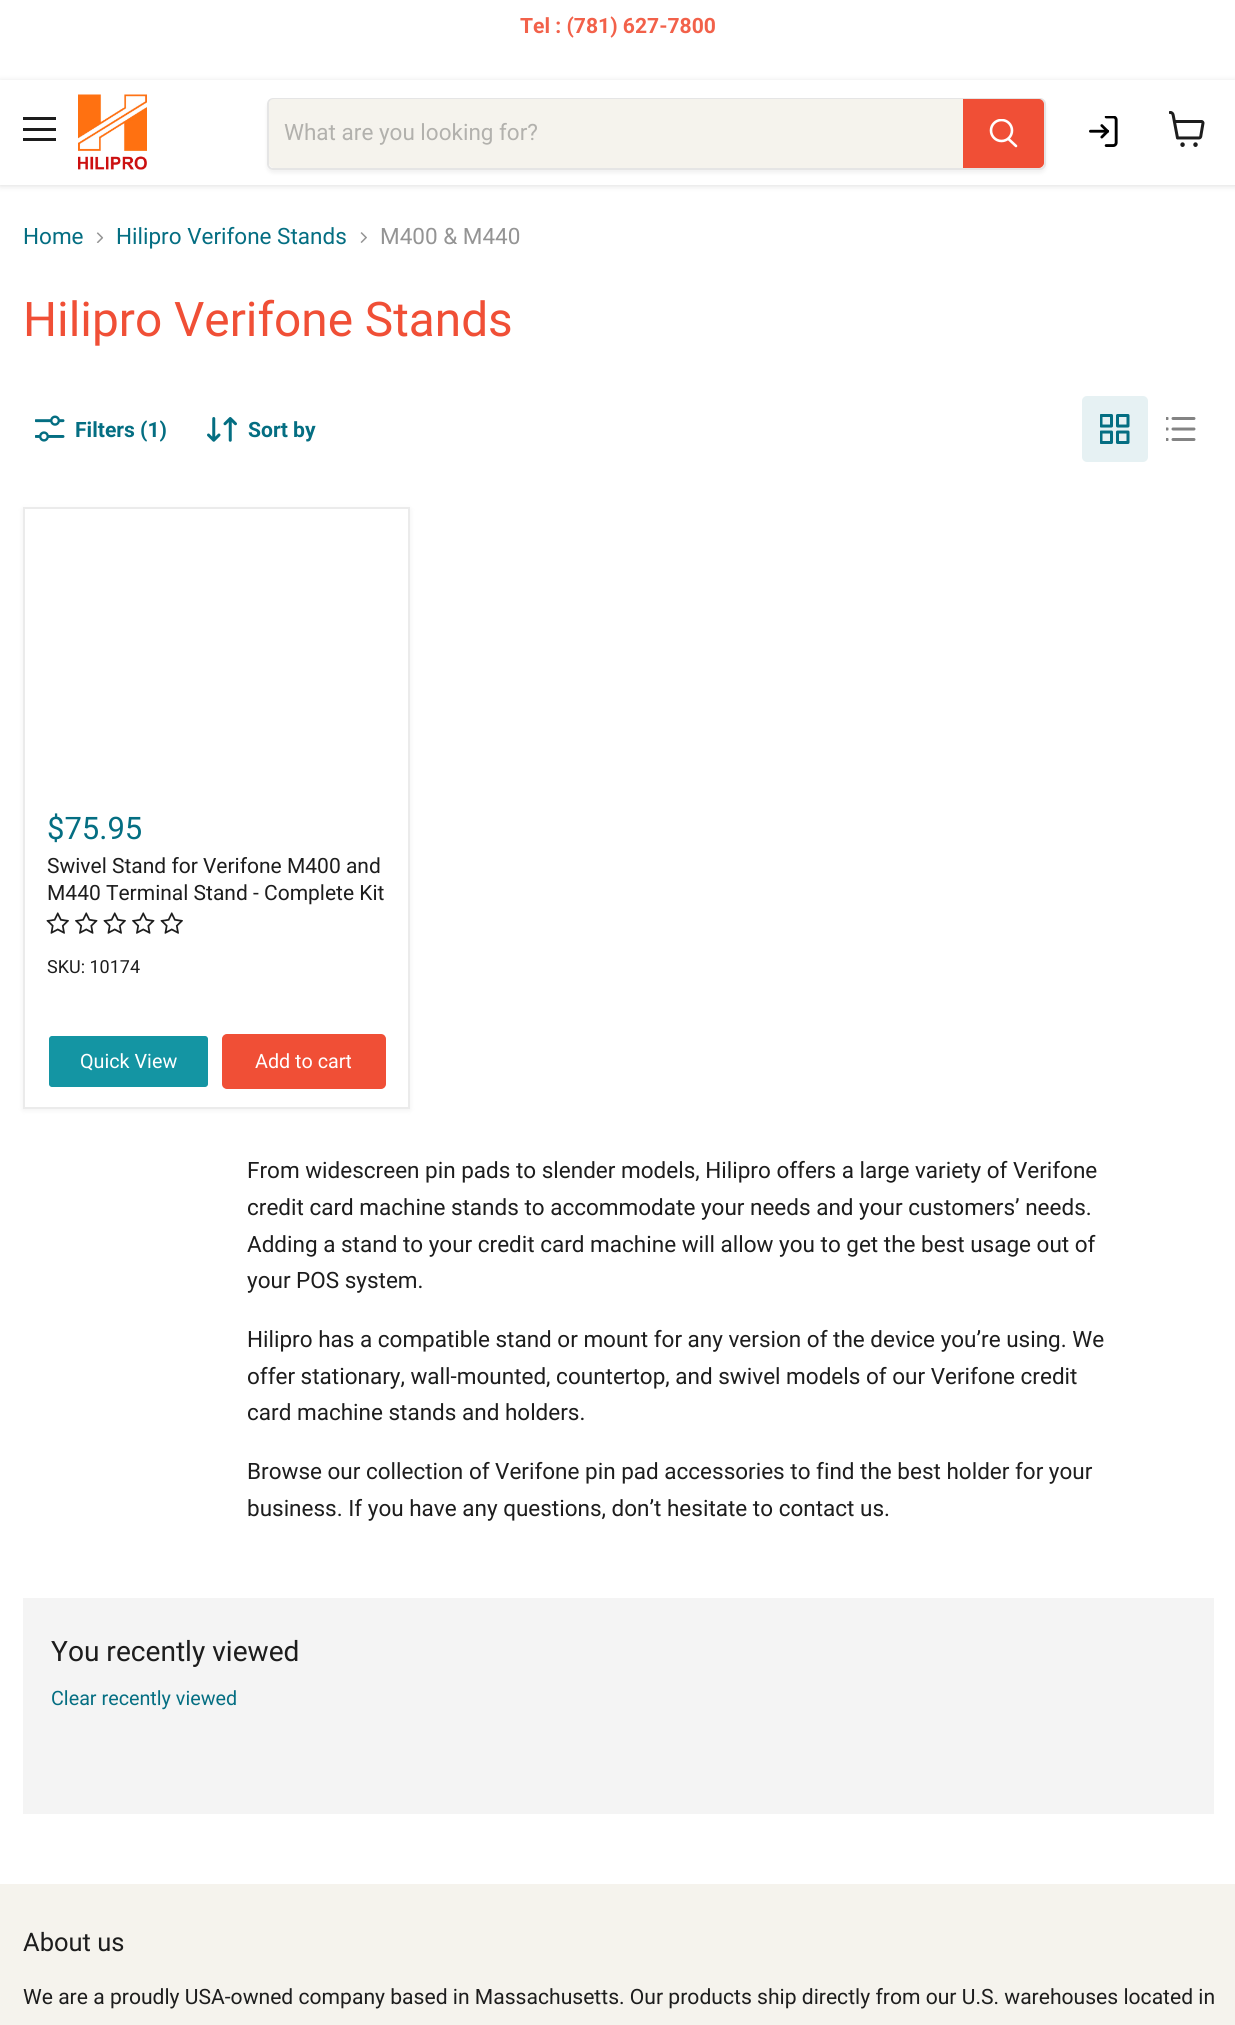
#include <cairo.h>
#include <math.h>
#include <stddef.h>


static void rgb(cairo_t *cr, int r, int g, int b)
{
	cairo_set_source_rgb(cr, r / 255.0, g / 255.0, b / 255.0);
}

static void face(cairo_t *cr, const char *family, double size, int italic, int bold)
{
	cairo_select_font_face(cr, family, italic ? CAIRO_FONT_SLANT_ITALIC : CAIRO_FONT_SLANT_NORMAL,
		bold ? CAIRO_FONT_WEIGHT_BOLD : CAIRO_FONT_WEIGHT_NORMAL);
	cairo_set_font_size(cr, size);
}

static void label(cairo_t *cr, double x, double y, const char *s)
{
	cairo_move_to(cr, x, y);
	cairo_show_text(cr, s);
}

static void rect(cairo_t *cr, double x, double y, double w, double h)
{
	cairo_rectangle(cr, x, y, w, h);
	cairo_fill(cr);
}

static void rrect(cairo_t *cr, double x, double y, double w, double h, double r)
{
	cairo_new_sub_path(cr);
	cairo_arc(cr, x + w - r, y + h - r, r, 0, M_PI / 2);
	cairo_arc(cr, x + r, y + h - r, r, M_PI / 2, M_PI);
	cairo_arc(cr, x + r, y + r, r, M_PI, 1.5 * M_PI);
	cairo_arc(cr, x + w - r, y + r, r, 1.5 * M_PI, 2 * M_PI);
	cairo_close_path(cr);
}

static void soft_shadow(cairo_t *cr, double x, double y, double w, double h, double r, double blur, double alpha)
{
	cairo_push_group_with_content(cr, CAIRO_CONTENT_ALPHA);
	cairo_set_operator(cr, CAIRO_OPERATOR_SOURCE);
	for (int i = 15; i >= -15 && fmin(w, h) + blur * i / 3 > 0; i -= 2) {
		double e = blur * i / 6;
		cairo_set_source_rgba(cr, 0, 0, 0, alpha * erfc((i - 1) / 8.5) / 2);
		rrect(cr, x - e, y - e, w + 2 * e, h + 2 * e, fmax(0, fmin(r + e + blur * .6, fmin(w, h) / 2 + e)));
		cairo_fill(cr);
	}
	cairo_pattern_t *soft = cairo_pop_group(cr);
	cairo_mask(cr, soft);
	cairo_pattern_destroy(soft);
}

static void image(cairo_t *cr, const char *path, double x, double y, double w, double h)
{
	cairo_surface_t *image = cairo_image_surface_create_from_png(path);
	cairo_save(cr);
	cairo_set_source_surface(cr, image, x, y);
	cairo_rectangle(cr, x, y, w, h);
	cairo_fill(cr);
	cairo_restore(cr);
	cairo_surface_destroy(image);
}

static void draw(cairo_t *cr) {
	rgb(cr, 255, 255, 255);
	cairo_paint(cr);
	face(cr, "Roboto", 21.1, 0, 1);
	rgb(cr, 242, 97, 74);
	label(cr, 520, 33, "Tel : (781) 627-7800");
	rgb(cr, 128, 128, 128);
	soft_shadow(cr, 0, 81, 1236, 105, 0, 3, 0.25);
	rgb(cr, 255, 255, 255);
	rect(cr, 0, 80, 1235, 105);
	rgb(cr, 29, 29, 29);
	rect(cr, 23, 117, 33, 3);
	rect(cr, 23, 128, 33, 3);
	rect(cr, 23, 138, 33, 3);
	image(cr, "image0.png", 78, 94, 69, 76);
	cairo_save(cr);
	cairo_set_fill_rule(cr, CAIRO_FILL_RULE_EVEN_ODD);
	cairo_new_path(cr);
	cairo_move_to(cr, 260, 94);
	cairo_line_to(cr, 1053, 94);
	cairo_line_to(cr, 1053, 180);
	cairo_line_to(cr, 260, 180);
	cairo_close_path(cr);
	cairo_move_to(cr, 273, 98);
	cairo_line_to(cr, 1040, 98);
	cairo_curve_to(cr, 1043.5, 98, 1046, 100.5, 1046, 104);
	cairo_line_to(cr, 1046, 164);
	cairo_curve_to(cr, 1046, 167.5, 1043.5, 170, 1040, 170);
	cairo_line_to(cr, 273, 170);
	cairo_curve_to(cr, 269.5, 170, 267, 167.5, 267, 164);
	cairo_line_to(cr, 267, 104);
	cairo_curve_to(cr, 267, 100.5, 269.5, 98, 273, 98);
	cairo_close_path(cr);
	cairo_clip(cr);
	rgb(cr, 128, 128, 128);
	soft_shadow(cr, 267, 101, 779, 72, 6, 2, 0.11);
	cairo_restore(cr);
	rrect(cr, 268, 99, 777, 70, 5);
	cairo_set_source_rgba(cr, 0.502, 0.502, 0.502, 0.2);
	cairo_stroke(cr);
	rgb(cr, 245, 243, 237);
	cairo_new_path(cr);
	cairo_move_to(cr, 274, 99);
	cairo_line_to(cr, 963, 99);
	cairo_line_to(cr, 963, 168);
	cairo_line_to(cr, 274, 168);
	cairo_curve_to(cr, 271, 168, 269, 166, 269, 163);
	cairo_line_to(cr, 269, 104);
	cairo_curve_to(cr, 269, 101, 271, 99, 274, 99);
	cairo_close_path(cr);
	cairo_fill(cr);
	face(cr, "Roboto", 22.5, 0, 0);
	rgb(cr, 178, 177, 173);
	label(cr, 284, 140, "What are you looking for?");
	rgb(cr, 240, 79, 54);
	cairo_new_path(cr);
	cairo_move_to(cr, 964, 100);
	cairo_line_to(cr, 1039, 100);
	cairo_curve_to(cr, 1041, 100, 1043, 102, 1043, 104);
	cairo_line_to(cr, 1043, 163);
	cairo_curve_to(cr, 1043, 165, 1041, 167, 1039, 167);
	cairo_line_to(cr, 964, 167);
	cairo_close_path(cr);
	cairo_fill_preserve(cr);
	cairo_stroke(cr);
	cairo_new_path(cr);
	cairo_move_to(cr, 1016, 146);
	cairo_line_to(cr, 1008.5, 139);
	rgb(cr, 255, 255, 255);
	cairo_set_line_width(cr, 2.6);
	cairo_set_line_cap(cr, CAIRO_LINE_CAP_ROUND);
	cairo_stroke(cr);
	cairo_save(cr);
	cairo_rectangle(cr, 989, 119, 30, 31);
	cairo_clip(cr);
	cairo_arc(cr, 1001.5, 130.5, 10.5, 0, 2 * M_PI);
	cairo_set_line_cap(cr, CAIRO_LINE_CAP_BUTT);
	cairo_stroke(cr);
	cairo_restore(cr);
	image(cr, "image1.png", 1089, 116, 29, 31);
	image(cr, "image2.png", 1169, 111, 36, 36);
	rgb(cr, 4, 110, 130);
	label(cr, 23, 244, "Home");
	image(cr, "image3.png", 96, 232, 8, 11);
	label(cr, 116, 244, "Hilipro Verifone Stands");
	image(cr, "image4.png", 360, 232, 7, 11);
	rgb(cr, 148, 148, 148);
	label(cr, 380, 244, "M400 & M440");
	face(cr, "Roboto", 47.75, 0, 0);
	rgb(cr, 240, 79, 54);
	label(cr, 23, 336, "Hilipro Verifone Stands");
	image(cr, "image5.png", 35, 415, 30, 27);
	face(cr, "Roboto", 21.1, 0, 1);
	rgb(cr, 4, 110, 130);
	label(cr, 75, 437, "Filters (1)");
	image(cr, "image6.png", 207, 417, 30, 25);
	label(cr, 248, 437, "Sort by");
	rgb(cr, 230, 241, 243);
	rrect(cr, 1082, 396, 66, 66, 5);
	cairo_fill(cr);
	image(cr, "image7.png", 1100, 414, 30, 30);
	image(cr, "image8.png", 1166, 417, 30, 24);
	rgb(cr, 128, 128, 128);
	soft_shadow(cr, 23, 509, 387, 601, 0, 3, 0.11);
	rgb(cr, 255, 255, 255);
	cairo_rectangle(cr, 24, 508, 385, 600);
	cairo_fill_preserve(cr);
	rgb(cr, 235, 235, 235);
	cairo_set_line_width(cr, 2);
	cairo_set_line_cap(cr, CAIRO_LINE_CAP_BUTT);
	cairo_stroke(cr);
	face(cr, "Roboto", 31, 0, 0);
	rgb(cr, 4, 110, 130);
	label(cr, 47, 839, "$75.95");
	face(cr, "Roboto", 21, 0, 0);
	rgb(cr, 29, 29, 29);
	label(cr, 47, 873, "Swivel Stand for Verifone M400 and");
	label(cr, 47, 900, "M440 Terminal Stand - Complete Kit");
	image(cr, "image9.png", 46, 912, 23, 22);
	image(cr, "image10.png", 75, 912, 23, 22);
	image(cr, "image9.png", 103, 912, 23, 22);
	image(cr, "image10.png", 132, 912, 23, 22);
	image(cr, "image9.png", 160, 912, 23, 22);
	face(cr, "Roboto", 18, 0, 0);
	label(cr, 47, 973, "SKU: 10174");
	rgb(cr, 20, 149, 163);
	rrect(cr, 48, 1035, 161, 53, 4);
	cairo_fill_preserve(cr);
	rgb(cr, 255, 255, 255);
	cairo_stroke(cr);
	face(cr, "Roboto", 19.75, 0, 0);
	label(cr, 80, 1068, "Quick View");
	rgb(cr, 240, 79, 54);
	rrect(cr, 223, 1035, 162, 53, 4);
	cairo_fill_preserve(cr);
	cairo_stroke(cr);
	rgb(cr, 255, 255, 255);
	label(cr, 255, 1068, "Add to cart");
	face(cr, "Roboto", 22.5, 0, 0);
	rgb(cr, 29, 29, 29);
	label(cr, 247, 1178, "From widescreen pin pads to slender models, Hilipro offers a large variety of Verifone");
	label(cr, 247, 1215, "credit card machine stands to accommodate your needs and your customers’ needs.");
	label(cr, 247, 1252, "Adding a stand to your credit card machine will allow you to get the best usage out of");
	label(cr, 247, 1288, "your POS system.");
	label(cr, 247, 1347, "Hilipro has a compatible stand or mount for any version of the device you’re using. We");
	label(cr, 247, 1384, "offer stationary, wall-mounted, countertop, and swivel models of our Verifone credit");
	label(cr, 247, 1420, "card machine stands and holders.");
	label(cr, 247, 1479, "Browse our collection of Verifone pin pad accessories to find the best holder for your");
	label(cr, 247, 1516, "business. If you have any questions, don’t hesitate to contact us.");
	rgb(cr, 244, 244, 244);
	rect(cr, 23, 1598, 1191, 216);
	face(cr, "Roboto", 28.1, 0, 0);
	rgb(cr, 29, 29, 29);
	label(cr, 51, 1661, "You recently viewed");
	face(cr, "Roboto", 19.75, 0, 0);
	rgb(cr, 4, 110, 130);
	label(cr, 51, 1705, "Clear recently viewed");
	rgb(cr, 245, 243, 237);
	rect(cr, 0, 1884, 1235, 141);
	face(cr, "Roboto", 25.5, 0, 0);
	rgb(cr, 29, 29, 29);
	label(cr, 23, 1951, "About us");
	face(cr, "Roboto", 21.1, 0, 0);
	label(cr, 23, 2004, "We are a proudly USA-owned company based in Massachusetts. Our products ship directly from our U.S. warehouses located in");
}

int main(void) {
	cairo_surface_t *surface = cairo_image_surface_create(CAIRO_FORMAT_RGB24, 1235, 2025);
	cairo_t *cr = cairo_create(surface);
	cairo_font_options_t *options = cairo_font_options_create();
	cairo_font_options_set_hint_metrics(options, CAIRO_HINT_METRICS_OFF);
	cairo_font_options_set_hint_style(options, CAIRO_HINT_STYLE_NONE);
	cairo_set_font_options(cr, options);
	cairo_set_miter_limit(cr, 4);
	draw(cr);
	cairo_surface_write_to_png(surface, "render.png");
	cairo_font_options_destroy(options);
	cairo_destroy(cr);
	cairo_surface_destroy(surface);
	return 0;
}
